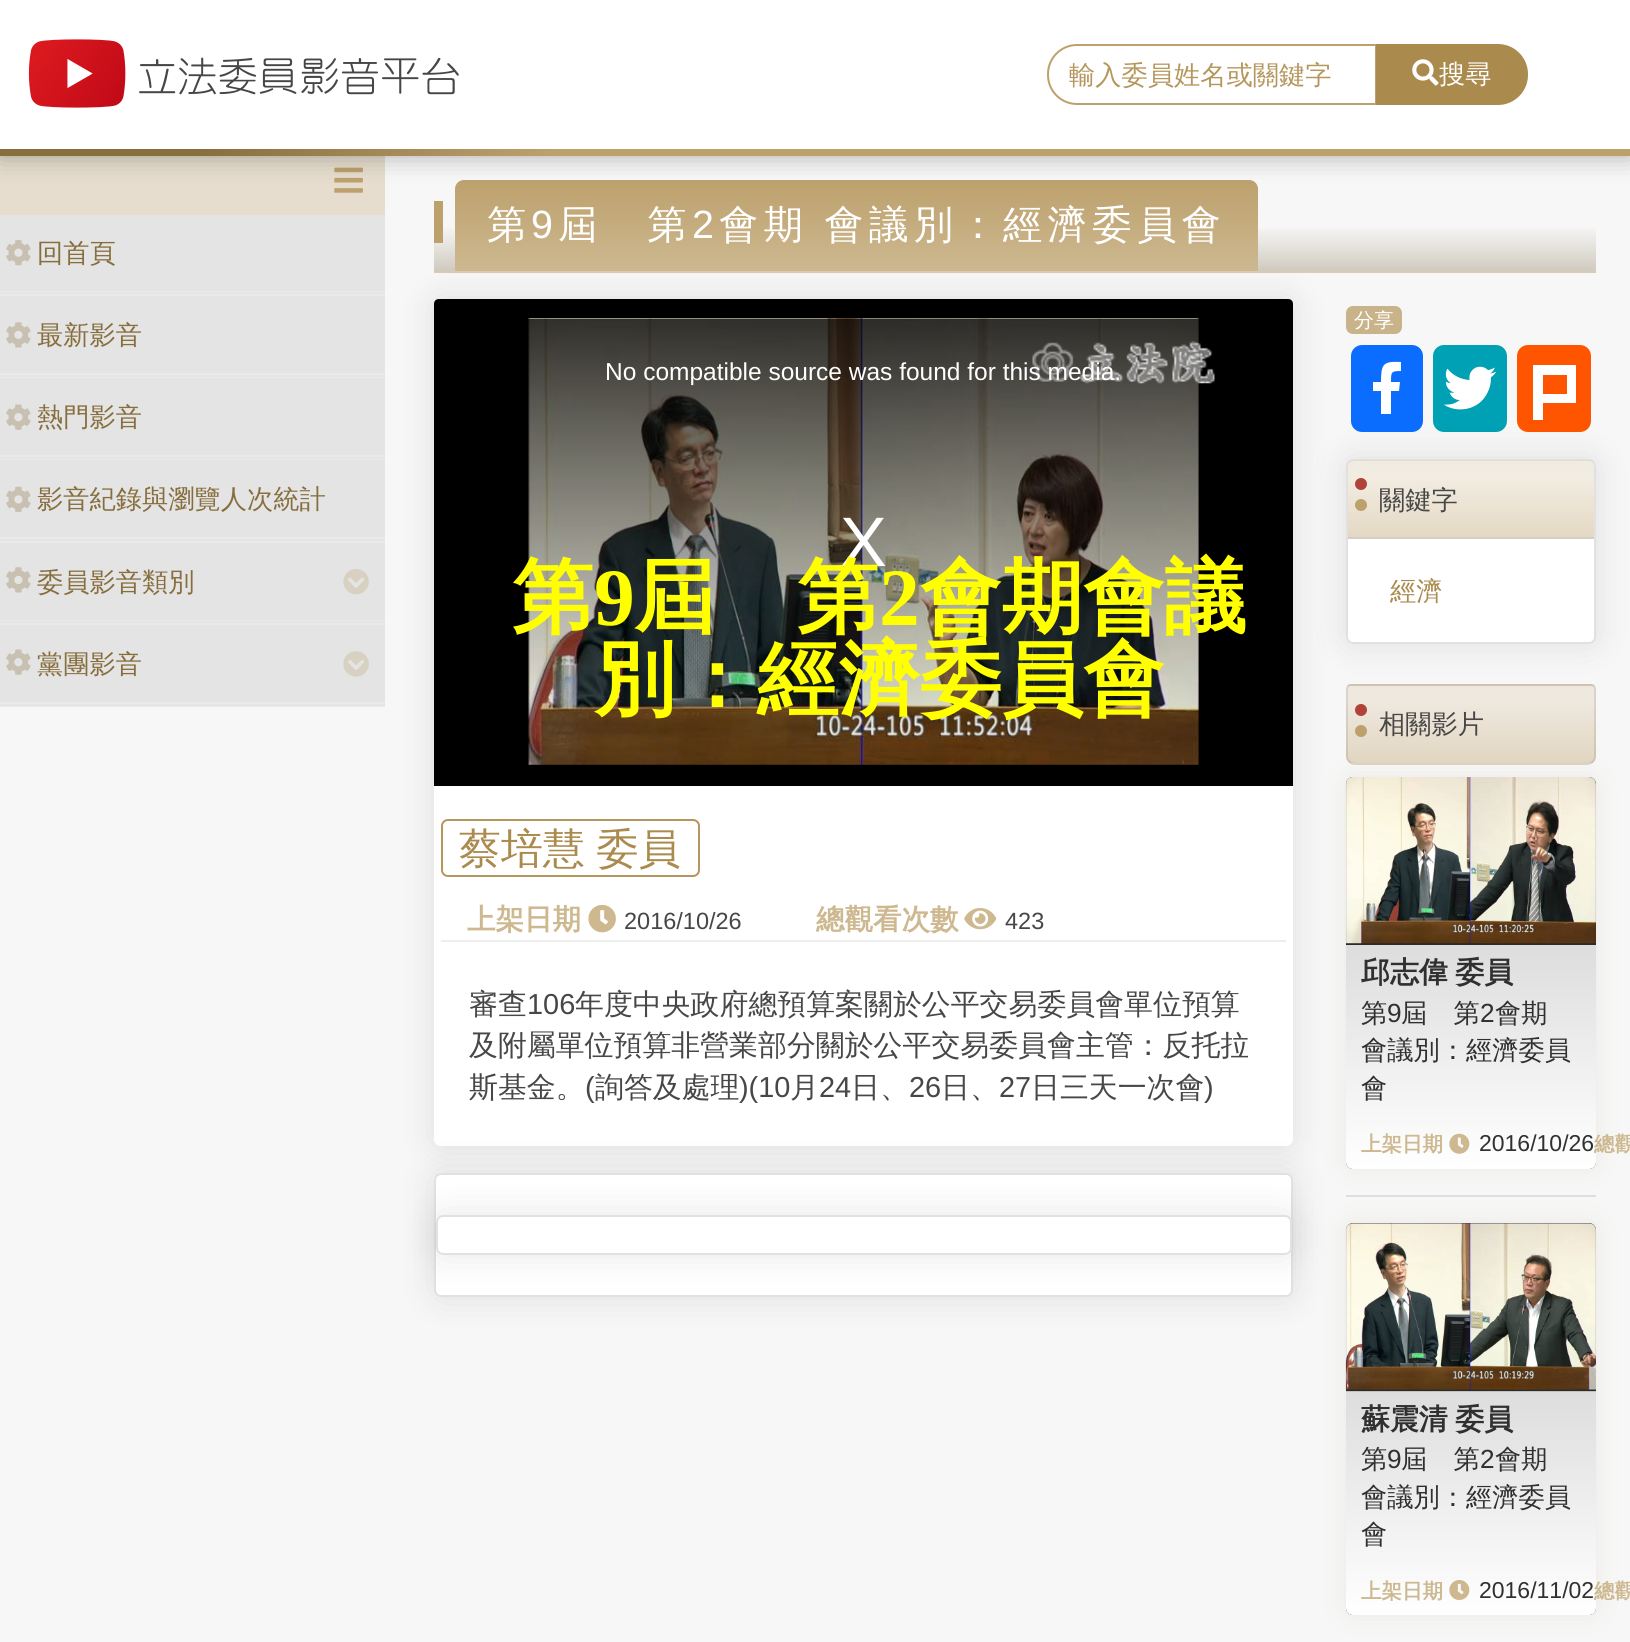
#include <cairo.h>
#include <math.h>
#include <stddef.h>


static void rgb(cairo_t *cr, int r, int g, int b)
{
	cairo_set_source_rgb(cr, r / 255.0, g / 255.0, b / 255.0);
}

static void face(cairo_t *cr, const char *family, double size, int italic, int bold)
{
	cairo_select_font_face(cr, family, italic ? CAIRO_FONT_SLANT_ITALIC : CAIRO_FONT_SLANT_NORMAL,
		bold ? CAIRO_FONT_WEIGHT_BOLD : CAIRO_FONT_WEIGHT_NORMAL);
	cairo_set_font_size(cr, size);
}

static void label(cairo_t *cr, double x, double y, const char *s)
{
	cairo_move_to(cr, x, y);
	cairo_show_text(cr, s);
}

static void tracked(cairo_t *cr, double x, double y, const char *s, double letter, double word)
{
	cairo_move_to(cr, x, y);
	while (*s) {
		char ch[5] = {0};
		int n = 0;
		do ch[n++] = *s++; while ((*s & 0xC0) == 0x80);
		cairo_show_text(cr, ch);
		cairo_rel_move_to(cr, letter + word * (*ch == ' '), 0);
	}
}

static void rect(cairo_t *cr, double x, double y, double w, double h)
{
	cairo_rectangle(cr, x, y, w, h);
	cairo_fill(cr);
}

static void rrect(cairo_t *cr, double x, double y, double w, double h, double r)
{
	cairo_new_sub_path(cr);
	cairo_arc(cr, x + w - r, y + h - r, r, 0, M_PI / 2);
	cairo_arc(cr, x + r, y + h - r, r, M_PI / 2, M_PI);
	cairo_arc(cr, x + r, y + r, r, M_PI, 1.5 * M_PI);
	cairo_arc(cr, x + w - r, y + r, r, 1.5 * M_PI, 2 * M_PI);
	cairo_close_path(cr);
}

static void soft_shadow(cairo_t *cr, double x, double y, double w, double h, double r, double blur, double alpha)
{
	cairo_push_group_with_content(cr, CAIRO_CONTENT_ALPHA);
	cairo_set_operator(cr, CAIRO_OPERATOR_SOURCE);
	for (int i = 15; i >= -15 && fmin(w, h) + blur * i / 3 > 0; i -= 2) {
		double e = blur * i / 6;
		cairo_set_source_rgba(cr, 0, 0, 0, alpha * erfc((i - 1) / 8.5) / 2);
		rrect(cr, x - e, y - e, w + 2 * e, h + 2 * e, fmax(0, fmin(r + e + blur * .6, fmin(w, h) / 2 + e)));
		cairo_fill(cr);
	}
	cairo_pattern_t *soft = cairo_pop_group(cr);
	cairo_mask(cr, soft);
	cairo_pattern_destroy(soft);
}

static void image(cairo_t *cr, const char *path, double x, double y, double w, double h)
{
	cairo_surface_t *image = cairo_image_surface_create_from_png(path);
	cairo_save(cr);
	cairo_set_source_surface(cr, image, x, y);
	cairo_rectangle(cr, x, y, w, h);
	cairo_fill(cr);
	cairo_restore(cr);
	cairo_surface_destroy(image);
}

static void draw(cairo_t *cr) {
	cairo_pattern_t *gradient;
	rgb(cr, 247, 247, 247);
	cairo_paint(cr);
	rgb(cr, 230, 221, 206);
	rect(cr, 0, 156, 385, 59);
	image(cr, "image2.png", 334, 167, 29, 26);
	gradient = cairo_pattern_create_linear(1015, 180, 1015, 271);
	cairo_pattern_add_color_stop_rgba(gradient, 0.5, 0.969, 0.969, 0.969, 1);
	cairo_pattern_add_color_stop_rgba(gradient, 1, 0.816, 0.796, 0.753, 1);
	cairo_set_source(cr, gradient);
	cairo_pattern_destroy(gradient);
	rect(cr, 434, 228, 1162, 43);
	gradient = cairo_pattern_create_linear(857, 180, 857, 271);
	cairo_pattern_add_color_stop_rgba(gradient, 0, 0.741, 0.631, 0.427, 1);
	cairo_pattern_add_color_stop_rgba(gradient, 1, 0.804, 0.722, 0.565, 1);
	cairo_set_source(cr, gradient);
	cairo_pattern_destroy(gradient);
	cairo_new_path(cr);
	cairo_move_to(cr, 464, 180);
	cairo_line_to(cr, 1249, 180);
	cairo_curve_to(cr, 1254, 180, 1258, 184, 1258, 189);
	cairo_line_to(cr, 1258, 271);
	cairo_line_to(cr, 455, 271);
	cairo_line_to(cr, 455, 189);
	cairo_curve_to(cr, 455, 184, 459, 180, 464, 180);
	cairo_close_path(cr);
	cairo_fill(cr);
	rgb(cr, 0, 0, 0);
	soft_shadow(cr, 0, 0, 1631, 156, 0, 13, 0.3);
	gradient = cairo_pattern_create_linear(0, 78, 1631, 78);
	cairo_pattern_add_color_stop_rgba(gradient, 0.12, 0.529, 0.431, 0.239, 1);
	cairo_pattern_add_color_stop_rgba(gradient, 0.34, 0.741, 0.631, 0.427, 1);
	cairo_set_source(cr, gradient);
	cairo_pattern_destroy(gradient);
	rect(cr, 0, 149, 1630, 7);
	rgb(cr, 255, 255, 255);
	rect(cr, 0, 0, 1630, 149);
	image(cr, "image0.png", 28, 39, 431, 69);
	cairo_new_path(cr);
	cairo_move_to(cr, 1077, 45);
	cairo_line_to(cr, 1376, 45);
	cairo_line_to(cr, 1376, 104);
	cairo_line_to(cr, 1077, 104);
	cairo_curve_to(cr, 1061, 104, 1048, 91, 1048, 75);
	cairo_line_to(cr, 1048, 74);
	cairo_curve_to(cr, 1048, 58, 1061, 45, 1077, 45);
	cairo_close_path(cr);
	rgb(cr, 189, 161, 109);
	cairo_stroke(cr);
	face(cr, "WenQuanYi Zen Hei Medium", 26.25, 0, 0);
	rgb(cr, 181, 150, 92);
	label(cr, 1069, 84, "輸入委員姓名或關鍵字");
	rgb(cr, 170, 138, 77);
	cairo_new_path(cr);
	cairo_move_to(cr, 1376, 44);
	cairo_line_to(cr, 1498, 44);
	cairo_curve_to(cr, 1514.5, 44, 1528, 57.5, 1528, 74);
	cairo_line_to(cr, 1528, 75);
	cairo_curve_to(cr, 1528, 91.5, 1514.5, 105, 1498, 105);
	cairo_line_to(cr, 1376, 105);
	cairo_close_path(cr);
	cairo_fill(cr);
	image(cr, "image1.png", 1412, 59, 27, 27);
	rgb(cr, 255, 255, 255);
	label(cr, 1439, 83, "搜尋");
	rgb(cr, 234, 234, 234);
	rect(cr, 0, 291, 385, 416);
	rgb(cr, 229, 229, 229);
	rect(cr, 0, 292, 385, 2);
	rgb(cr, 228, 228, 228);
	rect(cr, 0, 215, 385, 76);
	image(cr, "image3.png", 6, 240, 25, 26);
	rgb(cr, 135, 110, 61);
	label(cr, 37, 262, "回首頁");
	rgb(cr, 229, 229, 229);
	rect(cr, 0, 375, 385, 2);
	rgb(cr, 228, 228, 228);
	rect(cr, 0, 296, 385, 77);
	image(cr, "image4.png", 6, 322, 25, 26);
	rgb(cr, 135, 110, 61);
	label(cr, 37, 344, "最新影音");
	rgb(cr, 229, 229, 229);
	rect(cr, 0, 457, 385, 2);
	rgb(cr, 228, 228, 228);
	rect(cr, 0, 378, 385, 77);
	image(cr, "image5.png", 6, 404, 25, 26);
	rgb(cr, 135, 110, 61);
	label(cr, 37, 426, "熱門影音");
	rgb(cr, 229, 229, 229);
	rect(cr, 0, 539, 385, 2);
	rgb(cr, 228, 228, 228);
	rect(cr, 0, 460, 385, 77);
	image(cr, "image6.png", 6, 486, 25, 27);
	rgb(cr, 135, 110, 61);
	label(cr, 37, 508, "影音紀錄與瀏覽人次統計");
	rgb(cr, 229, 229, 229);
	rect(cr, 0, 621, 385, 2);
	rgb(cr, 228, 228, 228);
	rect(cr, 0, 543, 385, 77);
	image(cr, "image4.png", 6, 567, 25, 26);
	rgb(cr, 135, 110, 61);
	label(cr, 37, 591, "委員影音類別");
	image(cr, "image7.png", 343, 569, 26, 26);
	rgb(cr, 229, 229, 229);
	rect(cr, 0, 704, 385, 2);
	rgb(cr, 228, 228, 228);
	rect(cr, 0, 625, 385, 77);
	image(cr, "image5.png", 6, 649, 25, 26);
	rgb(cr, 135, 110, 61);
	label(cr, 37, 673, "黨團影音");
	image(cr, "image8.png", 343, 651, 26, 26);
	rgb(cr, 218, 204, 178);
	rect(cr, 434, 271, 1162, 2);
	rgb(cr, 189, 161, 109);
	rect(cr, 434, 201, 9, 42);
	face(cr, "WenQuanYi Zen Hei Medium", 39.4, 0, 0);
	rgb(cr, 255, 255, 255);
	tracked(cr, 487, 238, "第", 5.25, 0);
	face(cr, "Liberation Sans", 39.4, 0, 0);
	tracked(cr, 531, 238, "9", 5.25, 0);
	face(cr, "WenQuanYi Zen Hei Medium", 39.4, 0, 0);
	tracked(cr, 558, 238, "屆　第", 5.25, 0);
	face(cr, "Liberation Sans", 39.4, 0, 0);
	tracked(cr, 692, 238, "2", 5.25, 0);
	face(cr, "WenQuanYi Zen Hei Medium", 39.4, 0, 0);
	tracked(cr, 719, 238, "會期 會議別：經濟委員會", 5.25, -1);
	rgb(cr, 0, 0, 0);
	soft_shadow(cr, 434, 299, 859, 847, 7, 17.5, 0.1);
	rgb(cr, 255, 255, 255);
	rrect(cr, 434, 299, 859, 847, 7);
	cairo_fill(cr);
	rgb(cr, 0, 0, 0);
	cairo_new_path(cr);
	cairo_move_to(cr, 439, 299);
	cairo_line_to(cr, 1288, 299);
	cairo_curve_to(cr, 1291, 299, 1293, 301, 1293, 304);
	cairo_line_to(cr, 1293, 786);
	cairo_line_to(cr, 434, 786);
	cairo_line_to(cr, 434, 304);
	cairo_curve_to(cr, 434, 301, 436, 299, 439, 299);
	cairo_close_path(cr);
	cairo_fill(cr);
	image(cr, "image9.png", 528, 318, 669, 1);
	image(cr, "image10.png", 528, 318, 671, 447);
	gradient = cairo_pattern_create_linear(864, 318, 864, 765);
	cairo_pattern_add_color_stop_rgba(gradient, 0, 0, 0, 0, 0.8);
	cairo_pattern_add_color_stop_rgba(gradient, 1, 0, 0, 0, 0);
	cairo_set_source(cr, gradient);
	cairo_pattern_destroy(gradient);
	rect(cr, 528, 319, 671, 433);
	image(cr, "image11.png", 1032, 341, 183, 43);
	face(cr, "Liberation Sans", 24.5, 0, 0);
	rgb(cr, 255, 255, 255);
	label(cr, 605, 380, "No compatible source was found for this media.");
	face(cr, "Liberation Sans", 70, 0, 0);
	label(cr, 840, 566, "X");
	face(cr, "WenQuanYi Zen Hei", 81.5, 0, 1);
	rgb(cr, 255, 255, 0);
	label(cr, 512, 625, "第");
	face(cr, "Liberation Serif", 81.5, 0, 1);
	label(cr, 594, 625, "9");
	face(cr, "WenQuanYi Zen Hei", 81.5, 0, 1);
	label(cr, 634, 625, "屆　第");
	face(cr, "Liberation Serif", 81.5, 0, 1);
	label(cr, 879, 625, "2");
	face(cr, "WenQuanYi Zen Hei", 81.5, 0, 1);
	label(cr, 920, 625, "會期會議");
	label(cr, 594, 707, "別：經濟委員會");
	rgb(cr, 238, 238, 238);
	rect(cr, 441, 940, 845, 2);
	rrect(cr, 442, 820, 257, 56, 6);
	rgb(cr, 181, 150, 92);
	cairo_stroke(cr);
	face(cr, "WenQuanYi Zen Hei Medium", 42, 0, 0);
	rgb(cr, 170, 138, 77);
	tracked(cr, 459, 863, "蔡培慧 委員", 0, -1);
	image(cr, "image12.png", 588, 904, 28, 29);
	face(cr, "WenQuanYi Zen Hei", 28.5, 0, 1);
	rgb(cr, 205, 184, 144);
	label(cr, 467, 929, "上架日期");
	face(cr, "Liberation Sans", 23.5, 0, 0);
	rgb(cr, 71, 71, 71);
	label(cr, 624, 929, "2016/10/26");
	image(cr, "image13.png", 964, 908, 33, 22);
	face(cr, "WenQuanYi Zen Hei", 28.5, 0, 1);
	rgb(cr, 205, 184, 144);
	label(cr, 816, 929, "總觀看次數");
	face(cr, "Liberation Sans", 23.5, 0, 0);
	rgb(cr, 71, 71, 71);
	label(cr, 1005, 929, "423");
	face(cr, "WenQuanYi Zen Hei Medium", 28.9, 0, 0);
	label(cr, 469, 1014, "審查");
	face(cr, "Liberation Sans", 28.9, 0, 0);
	label(cr, 527, 1014, "106");
	face(cr, "WenQuanYi Zen Hei Medium", 28.9, 0, 0);
	label(cr, 575, 1014, "年度中央政府總預算案關於公平交易委員會單位預算");
	label(cr, 469, 1055, "及附屬單位預算非營業部分關於公平交易委員會主管：反托拉");
	label(cr, 469, 1097, "斯基金。");
	face(cr, "Liberation Sans", 28.9, 0, 0);
	label(cr, 585, 1097, "(");
	face(cr, "WenQuanYi Zen Hei Medium", 28.9, 0, 0);
	label(cr, 595, 1097, "詢答及處理");
	face(cr, "Liberation Sans", 28.9, 0, 0);
	label(cr, 739, 1097, ")(10");
	face(cr, "WenQuanYi Zen Hei Medium", 28.9, 0, 0);
	label(cr, 790, 1097, "月");
	face(cr, "Liberation Sans", 28.9, 0, 0);
	label(cr, 819, 1097, "24");
	face(cr, "WenQuanYi Zen Hei Medium", 28.9, 0, 0);
	label(cr, 851, 1097, "日、");
	face(cr, "Liberation Sans", 28.9, 0, 0);
	label(cr, 909, 1097, "26");
	face(cr, "WenQuanYi Zen Hei Medium", 28.9, 0, 0);
	label(cr, 941, 1097, "日、");
	face(cr, "Liberation Sans", 28.9, 0, 0);
	label(cr, 999, 1097, "27");
	face(cr, "WenQuanYi Zen Hei Medium", 28.9, 0, 0);
	label(cr, 1031, 1097, "日三天一次會");
	face(cr, "Liberation Sans", 28.9, 0, 0);
	label(cr, 1204, 1097, ")");
	rgb(cr, 0, 0, 0);
	soft_shadow(cr, 434, 1173, 859, 124, 7, 17.5, 0.1);
	rgb(cr, 255, 255, 255);
	rrect(cr, 434, 1173, 859, 124, 7);
	cairo_fill(cr);
	rrect(cr, 435, 1174, 857, 122, 6);
	cairo_set_source_rgba(cr, 0, 0, 0, 0.12);
	cairo_stroke(cr);
	rgb(cr, 0, 0, 0);
	soft_shadow(cr, 436, 1215, 856, 40, 7, 17.5, 0.1);
	rgb(cr, 255, 255, 255);
	rrect(cr, 436, 1215, 856, 40, 7);
	cairo_fill(cr);
	rrect(cr, 437, 1216, 854, 38, 6);
	cairo_set_source_rgba(cr, 0, 0, 0, 0.12);
	cairo_stroke(cr);
	rgb(cr, 201, 179, 138);
	rrect(cr, 1346, 306, 56, 28, 7);
	cairo_fill(cr);
	face(cr, "WenQuanYi Zen Hei Medium", 20, 0, 0);
	rgb(cr, 255, 255, 255);
	label(cr, 1354, 327, "分享");
	rgb(cr, 11, 109, 255);
	rrect(cr, 1351, 345, 72, 87, 11);
	cairo_fill(cr);
	rgb(cr, 255, 255, 255);
	cairo_new_path(cr);
	cairo_move_to(cr, 1399, 391);
	cairo_line_to(cr, 1391, 391);
	cairo_line_to(cr, 1391, 414);
	cairo_line_to(cr, 1381, 414);
	cairo_line_to(cr, 1381, 391);
	cairo_line_to(cr, 1373, 391);
	cairo_line_to(cr, 1373, 382);
	cairo_line_to(cr, 1381, 382);
	cairo_curve_to(cr, 1381, 364, 1383, 361, 1401, 362);
	cairo_line_to(cr, 1401, 371);
	cairo_curve_to(cr, 1391, 371, 1391, 372, 1391, 382);
	cairo_line_to(cr, 1400, 382);
	cairo_close_path(cr);
	cairo_fill(cr);
	rgb(cr, 0, 161, 180);
	rrect(cr, 1433, 345, 74, 87, 11);
	cairo_fill(cr);
	image(cr, "image14.png", 1444, 366, 53, 44);
	rgb(cr, 255, 85, 0);
	rrect(cr, 1517, 345, 74, 87, 11);
	cairo_fill(cr);
	rgb(cr, 255, 255, 255);
	cairo_new_path(cr);
	cairo_move_to(cr, 1533, 365);
	cairo_line_to(cr, 1533, 420);
	cairo_line_to(cr, 1543, 420);
	cairo_line_to(cr, 1543, 403);
	cairo_line_to(cr, 1576, 403);
	cairo_line_to(cr, 1576, 365);
	cairo_close_path(cr);
	cairo_move_to(cr, 1567, 394);
	cairo_line_to(cr, 1543, 394);
	cairo_line_to(cr, 1543, 375);
	cairo_line_to(cr, 1567, 375);
	cairo_close_path(cr);
	cairo_fill(cr);
	rgb(cr, 0, 0, 0);
	soft_shadow(cr, 1346, 459, 250, 185, 7, 17.5, 0.1);
	rgb(cr, 255, 255, 255);
	rrect(cr, 1346, 459, 250, 185, 7);
	cairo_fill(cr);
	rrect(cr, 1347, 460, 248, 183, 6);
	cairo_set_source_rgba(cr, 0, 0, 0, 0.12);
	cairo_stroke(cr);
	gradient = cairo_pattern_create_linear(1471, 460, 1471, 537);
	cairo_pattern_add_color_stop_rgba(gradient, 0.2, 0.898, 0.855, 0.773, 0.5);
	cairo_pattern_add_color_stop_rgba(gradient, 1, 0.867, 0.808, 0.702, 0.8);
	cairo_set_source(cr, gradient);
	cairo_pattern_destroy(gradient);
	cairo_new_path(cr);
	cairo_move_to(cr, 1353, 460);
	cairo_line_to(cr, 1589, 460);
	cairo_curve_to(cr, 1592, 460, 1594, 462, 1594, 465);
	cairo_line_to(cr, 1594, 537);
	cairo_line_to(cr, 1348, 537);
	cairo_line_to(cr, 1348, 465);
	cairo_curve_to(cr, 1348, 462, 1350, 460, 1353, 460);
	cairo_close_path(cr);
	cairo_fill(cr);
	rgb(cr, 212, 207, 198);
	rect(cr, 1348, 537, 246, 2);
	rgb(cr, 177, 66, 58);
	cairo_arc(cr, 1361, 484, 6, 0, 2 * M_PI);
	cairo_fill(cr);
	rgb(cr, 189, 161, 109);
	cairo_arc(cr, 1361, 505, 6, 0, 2 * M_PI);
	cairo_fill(cr);
	face(cr, "WenQuanYi Zen Hei Medium", 26.25, 0, 0);
	rgb(cr, 71, 71, 71);
	label(cr, 1379, 509, "關鍵字");
	rgb(cr, 170, 138, 77);
	label(cr, 1390, 600, "經濟");
	cairo_save(cr);
	cairo_new_path(cr);
	cairo_move_to(cr, 1351, 684);
	cairo_line_to(cr, 1591, 684);
	cairo_curve_to(cr, 1594, 684, 1596, 686, 1596, 689);
	cairo_line_to(cr, 1596, 756);
	cairo_curve_to(cr, 1596, 761, 1592, 765, 1587, 765);
	cairo_line_to(cr, 1355, 765);
	cairo_curve_to(cr, 1350, 765, 1346, 761, 1346, 756);
	cairo_line_to(cr, 1346, 689);
	cairo_curve_to(cr, 1346, 686, 1348, 684, 1351, 684);
	cairo_close_path(cr);
	cairo_clip(cr);
	gradient = cairo_pattern_create_linear(1471, 609, 1471, 686);
	cairo_pattern_add_color_stop_rgba(gradient, 0.2, 0.933, 0.91, 0.871, 1);
	cairo_pattern_add_color_stop_rgba(gradient, 1, 0.886, 0.839, 0.757, 1);
	cairo_set_source(cr, gradient);
	cairo_pattern_destroy(gradient);
	rect(cr, 1346, 684, 250, 2);
	gradient = cairo_pattern_create_linear(1471, 686, 1471, 763);
	cairo_pattern_add_color_stop_rgba(gradient, 0.2, 0.933, 0.91, 0.871, 1);
	cairo_pattern_add_color_stop_rgba(gradient, 1, 0.886, 0.839, 0.757, 1);
	cairo_set_source(cr, gradient);
	cairo_pattern_destroy(gradient);
	rect(cr, 1346, 686, 250, 77);
	gradient = cairo_pattern_create_linear(1471, 763, 1471, 840);
	cairo_pattern_add_color_stop_rgba(gradient, 0.2, 0.933, 0.914, 0.871, 1);
	cairo_pattern_add_color_stop_rgba(gradient, 1, 0.886, 0.839, 0.757, 1);
	cairo_set_source(cr, gradient);
	cairo_pattern_destroy(gradient);
	rect(cr, 1346, 763, 250, 2);
	cairo_restore(cr);
	cairo_new_path(cr);
	cairo_move_to(cr, 1351, 685);
	cairo_line_to(cr, 1591, 685);
	cairo_curve_to(cr, 1593, 685, 1595, 687, 1595, 689);
	cairo_line_to(cr, 1595, 756);
	cairo_curve_to(cr, 1595, 760.5, 1591.5, 764, 1587, 764);
	cairo_line_to(cr, 1355, 764);
	cairo_curve_to(cr, 1350.5, 764, 1347, 760.5, 1347, 756);
	cairo_line_to(cr, 1347, 689);
	cairo_curve_to(cr, 1347, 687, 1349, 685, 1351, 685);
	cairo_close_path(cr);
	cairo_set_source_rgba(cr, 0, 0, 0, 0.09);
	cairo_stroke(cr);
	rgb(cr, 177, 66, 58);
	cairo_arc(cr, 1361, 710, 6, 0, 2 * M_PI);
	cairo_fill(cr);
	rgb(cr, 71, 71, 71);
	label(cr, 1379, 733, "相關影片");
	rgb(cr, 189, 161, 109);
	cairo_new_path(cr);
	cairo_arc(cr, 1361, 731, 6, 0, 2 * M_PI);
	cairo_fill(cr);
	rgb(cr, 222, 222, 222);
	rect(cr, 1346, 1195, 250, 2);
	rgb(cr, 135, 110, 61);
	soft_shadow(cr, 1346, 777, 250, 392, 7, 12, 0.1);
	rgb(cr, 48, 48, 48);
	rrect(cr, 1346, 777, 250, 392, 7);
	cairo_fill(cr);
	image(cr, "image15.png", 1345, 777, 251, 167);
	cairo_set_source_rgba(cr, 0, 0, 0, 0.12);
	rect(cr, 1346, 943, 250, 2);
	gradient = cairo_pattern_create_linear(1471, 945, 1471, 1169);
	cairo_pattern_add_color_stop_rgba(gradient, 0, 0.867, 0.867, 0.867, 1);
	cairo_pattern_add_color_stop_rgba(gradient, 1, 1, 1, 1, 1);
	cairo_set_source(cr, gradient);
	cairo_pattern_destroy(gradient);
	cairo_new_path(cr);
	cairo_move_to(cr, 1346, 945);
	cairo_line_to(cr, 1596, 945);
	cairo_line_to(cr, 1596, 1162);
	cairo_curve_to(cr, 1596, 1166, 1593, 1169, 1589, 1169);
	cairo_line_to(cr, 1353, 1169);
	cairo_curve_to(cr, 1349, 1169, 1346, 1166, 1346, 1162);
	cairo_close_path(cr);
	cairo_fill(cr);
	face(cr, "WenQuanYi Zen Hei", 28.9, 0, 1);
	rgb(cr, 48, 48, 48);
	tracked(cr, 1361, 982, "邱志偉 委員", 0, -1);
	face(cr, "WenQuanYi Zen Hei Medium", 26.25, 0, 0);
	label(cr, 1361, 1022, "第");
	face(cr, "Liberation Sans", 26.25, 0, 0);
	label(cr, 1387, 1022, "9");
	face(cr, "WenQuanYi Zen Hei Medium", 26.25, 0, 0);
	label(cr, 1401, 1022, "屆　第");
	face(cr, "Liberation Sans", 26.25, 0, 0);
	label(cr, 1480, 1022, "2");
	face(cr, "WenQuanYi Zen Hei Medium", 26.25, 0, 0);
	label(cr, 1495, 1022, "會期");
	label(cr, 1361, 1059, "會議別：經濟委員");
	label(cr, 1361, 1097, "會");
	image(cr, "image16.png", 1449, 1133, 21, 21);
	face(cr, "WenQuanYi Zen Hei", 20.5, 0, 1);
	rgb(cr, 205, 184, 144);
	label(cr, 1361, 1151, "上架日期");
	face(cr, "Liberation Sans", 23, 0, 0);
	rgb(cr, 48, 48, 48);
	label(cr, 1479, 1151, "2016/10/26");
	face(cr, "WenQuanYi Zen Hei", 20.5, 0, 1);
	rgb(cr, 205, 184, 144);
	label(cr, 1594, 1151, "總觀");
	rgb(cr, 135, 110, 61);
	soft_shadow(cr, 1346, 1223, 250, 392, 7, 12, 0.1);
	rgb(cr, 48, 48, 48);
	rrect(cr, 1346, 1223, 250, 392, 7);
	cairo_fill(cr);
	rgb(cr, 42, 42, 42);
	rect(cr, 1346, 1390, 250, 1);
	image(cr, "image17.png", 1345, 1223, 251, 167);
	gradient = cairo_pattern_create_linear(1471, 1391, 1471, 1615);
	cairo_pattern_add_color_stop_rgba(gradient, 0, 0.867, 0.867, 0.867, 1);
	cairo_pattern_add_color_stop_rgba(gradient, 1, 1, 1, 1, 1);
	cairo_set_source(cr, gradient);
	cairo_pattern_destroy(gradient);
	cairo_new_path(cr);
	cairo_move_to(cr, 1346, 1391);
	cairo_line_to(cr, 1596, 1391);
	cairo_line_to(cr, 1596, 1608);
	cairo_curve_to(cr, 1596, 1612, 1593, 1615, 1589, 1615);
	cairo_line_to(cr, 1353, 1615);
	cairo_curve_to(cr, 1349, 1615, 1346, 1612, 1346, 1608);
	cairo_close_path(cr);
	cairo_fill(cr);
	gradient = cairo_pattern_create_linear(1471, 1391, 1471, 1615);
	cairo_pattern_add_color_stop_rgba(gradient, 0, 0.761, 0.761, 0.761, 1);
	cairo_pattern_add_color_stop_rgba(gradient, 1, 0.878, 0.878, 0.878, 1);
	cairo_set_source(cr, gradient);
	cairo_pattern_destroy(gradient);
	rect(cr, 1346, 1391, 250, 1);
	face(cr, "WenQuanYi Zen Hei", 28.9, 0, 1);
	rgb(cr, 48, 48, 48);
	tracked(cr, 1361, 1429, "蘇震清 委員", 0, -1);
	face(cr, "WenQuanYi Zen Hei Medium", 26.25, 0, 0);
	label(cr, 1361, 1468, "第");
	face(cr, "Liberation Sans", 26.25, 0, 0);
	label(cr, 1387, 1468, "9");
	face(cr, "WenQuanYi Zen Hei Medium", 26.25, 0, 0);
	label(cr, 1401, 1468, "屆　第");
	face(cr, "Liberation Sans", 26.25, 0, 0);
	label(cr, 1480, 1468, "2");
	face(cr, "WenQuanYi Zen Hei Medium", 26.25, 0, 0);
	label(cr, 1495, 1468, "會期");
	label(cr, 1361, 1506, "會議別：經濟委員");
	label(cr, 1361, 1543, "會");
	image(cr, "image18.png", 1449, 1580, 21, 20);
	face(cr, "WenQuanYi Zen Hei", 20.5, 0, 1);
	rgb(cr, 205, 184, 144);
	label(cr, 1361, 1598, "上架日期");
	face(cr, "Liberation Sans", 23, 0, 0);
	rgb(cr, 48, 48, 48);
	label(cr, 1479, 1598, "2016/11/02");
	face(cr, "WenQuanYi Zen Hei", 20.5, 0, 1);
	rgb(cr, 205, 184, 144);
	label(cr, 1594, 1598, "總觀");
}

int main(void) {
	cairo_surface_t *surface = cairo_image_surface_create(CAIRO_FORMAT_RGB24, 1630, 1642);
	cairo_t *cr = cairo_create(surface);
	cairo_font_options_t *options = cairo_font_options_create();
	cairo_font_options_set_hint_metrics(options, CAIRO_HINT_METRICS_OFF);
	cairo_font_options_set_hint_style(options, CAIRO_HINT_STYLE_NONE);
	cairo_set_font_options(cr, options);
	cairo_set_miter_limit(cr, 4);
	draw(cr);
	cairo_surface_write_to_png(surface, "render.png");
	cairo_font_options_destroy(options);
	cairo_destroy(cr);
	cairo_surface_destroy(surface);
	return 0;
}
